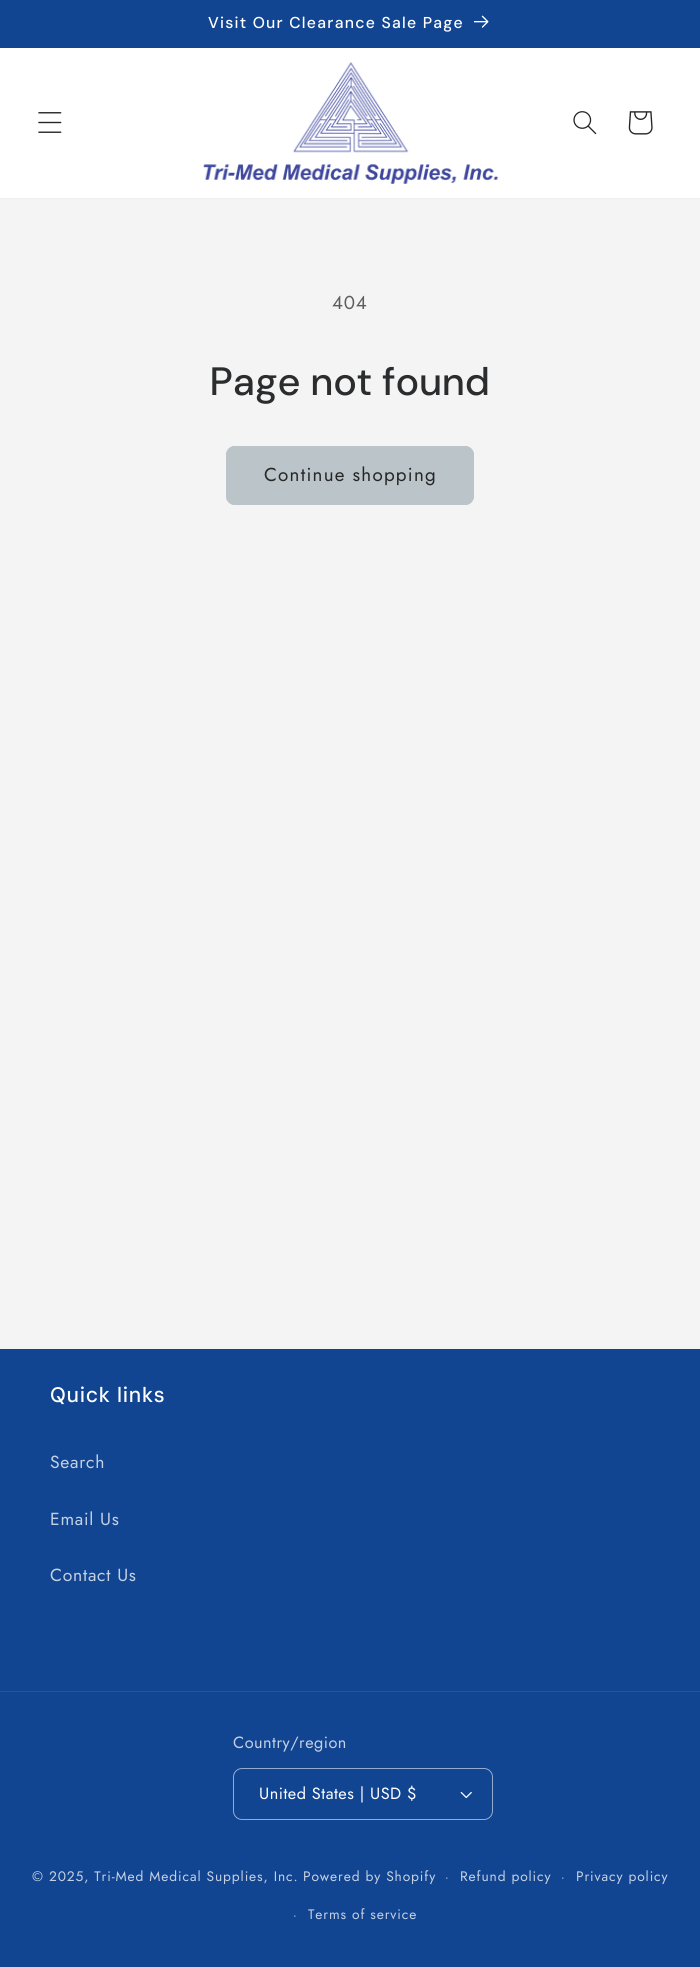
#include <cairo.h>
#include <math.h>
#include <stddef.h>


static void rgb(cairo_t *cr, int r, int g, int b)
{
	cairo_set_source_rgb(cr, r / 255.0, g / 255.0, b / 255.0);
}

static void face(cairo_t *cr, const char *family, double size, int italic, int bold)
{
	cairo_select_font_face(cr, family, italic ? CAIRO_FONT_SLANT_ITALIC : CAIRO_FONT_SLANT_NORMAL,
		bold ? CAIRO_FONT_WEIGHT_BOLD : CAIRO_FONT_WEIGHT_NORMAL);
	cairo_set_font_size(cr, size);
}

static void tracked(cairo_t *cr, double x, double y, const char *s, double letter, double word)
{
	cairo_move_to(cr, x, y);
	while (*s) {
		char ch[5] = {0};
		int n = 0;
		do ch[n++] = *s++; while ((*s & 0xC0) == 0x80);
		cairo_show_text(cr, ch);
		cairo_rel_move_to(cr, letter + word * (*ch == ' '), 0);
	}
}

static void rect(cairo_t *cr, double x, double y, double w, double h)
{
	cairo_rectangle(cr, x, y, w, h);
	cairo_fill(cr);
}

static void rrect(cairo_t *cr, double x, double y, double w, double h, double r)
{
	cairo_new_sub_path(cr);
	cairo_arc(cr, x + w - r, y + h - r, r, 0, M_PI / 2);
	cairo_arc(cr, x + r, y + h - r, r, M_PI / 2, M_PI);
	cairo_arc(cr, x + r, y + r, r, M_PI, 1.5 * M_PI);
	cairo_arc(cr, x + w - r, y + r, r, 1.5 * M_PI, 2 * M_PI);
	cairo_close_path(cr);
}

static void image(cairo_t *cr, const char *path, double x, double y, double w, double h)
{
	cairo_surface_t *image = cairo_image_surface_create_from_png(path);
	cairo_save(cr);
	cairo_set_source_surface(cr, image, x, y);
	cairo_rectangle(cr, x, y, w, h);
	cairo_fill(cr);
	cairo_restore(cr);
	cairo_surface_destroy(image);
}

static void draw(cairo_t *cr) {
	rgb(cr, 244, 244, 244);
	cairo_paint(cr);
	rgb(cr, 18, 69, 145);
	rect(cr, 0, 0, 700, 48);
	face(cr, "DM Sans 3 Medium", 15.75, 0, 0);
	rgb(cr, 255, 255, 255);
	tracked(cr, 208, 28, "Visit Our Clearance Sale Page", 1.25, 0);
	image(cr, "image0.png", 474, 15, 15, 13);
	rect(cr, 0, 48, 700, 150);
	rgb(cr, 238, 238, 238);
	rect(cr, 0, 198, 700, 1);
	image(cr, "image1.png", 38, 112, 24, 21);
	image(cr, "image2.png", 203, 62, 295, 122);
	image(cr, "image3.png", 573, 111, 24, 24);
	image(cr, "image4.png", 628, 111, 25, 24);
	face(cr, "Jost", 18.75, 0, 0);
	rgb(cr, 93, 94, 95);
	tracked(cr, 332, 309, "404", 0.75, 0);
	face(cr, "DM Sans Medium", 39.5, 0, 0);
	rgb(cr, 43, 44, 45);
	tracked(cr, 210, 395, "Page not found", 0.75, 0);
	rgb(cr, 186, 196, 201);
	rrect(cr, 226, 446, 248, 59, 9);
	cairo_fill(cr);
	rrect(cr, 226.5, 446.5, 247, 58, 8.5);
	cairo_set_line_width(cr, 1);
	cairo_stroke(cr);
	face(cr, "Jost", 18.75, 0, 0);
	rgb(cr, 38, 38, 38);
	tracked(cr, 264, 481, "Continue shopping", 1.25, 0);
	rgb(cr, 18, 69, 145);
	rect(cr, 0, 1349, 700, 618);
	face(cr, "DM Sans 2 Medium", 21, 0, 0);
	rgb(cr, 255, 255, 255);
	tracked(cr, 50, 1402, "Quick links", 0.75, 0);
	face(cr, "Jost", 17.5, 0, 0);
	rgb(cr, 196, 209, 228);
	tracked(cr, 50, 1468, "Search", 0.75, 0);
	tracked(cr, 50, 1525, "Email Us", 0.75, 0);
	tracked(cr, 50, 1581, "Contact Us", 0.75, 0);
	rgb(cr, 37, 84, 154);
	rect(cr, 0, 1691, 700, 1);
	face(cr, "Jost", 16.25, 0, 0);
	rgb(cr, 196, 209, 228);
	tracked(cr, 233, 1748, "Country/region", 0.5, 0);
	image(cr, "image5.png", 460, 1791, 12, 8);
	rrect(cr, 233.5, 1768.5, 259, 51, 8.5);
	rgb(cr, 148, 171, 206);
	cairo_stroke(cr);
	rgb(cr, 255, 255, 255);
	tracked(cr, 259, 1799, "United States | USD $", 0.5, 0);
	face(cr, "Jost", 13.75, 0, 0);
	rgb(cr, 196, 209, 228);
	tracked(cr, 32, 1881, "© 2025, Tri-Med Medical Supplies, Inc.", 0.9, 0);
	face(cr, "Jost", 12, 0, 0);
	tracked(cr, 445, 1881, "·", 0.9, 0);
	face(cr, "Jost", 13.75, 0, 0);
	tracked(cr, 460, 1881, "Refund policy", 0.9, 0);
	face(cr, "Jost", 12, 0, 0);
	tracked(cr, 561, 1881, "·", 0.9, 0);
	face(cr, "Jost", 13.75, 0, 0);
	tracked(cr, 576, 1881, "Privacy policy", 0.9, 0);
	face(cr, "Jost", 12, 0, 0);
	tracked(cr, 293, 1919, "·", 0.9, 0);
	face(cr, "Jost", 13.75, 0, 0);
	tracked(cr, 308, 1919, "Terms of service", 0.9, 0);
	tracked(cr, 303, 1881, "Powered by Shopify", 0.9, 0);
}

int main(void) {
	cairo_surface_t *surface = cairo_image_surface_create(CAIRO_FORMAT_RGB24, 700, 1967);
	cairo_t *cr = cairo_create(surface);
	cairo_font_options_t *options = cairo_font_options_create();
	cairo_font_options_set_hint_metrics(options, CAIRO_HINT_METRICS_OFF);
	cairo_font_options_set_hint_style(options, CAIRO_HINT_STYLE_NONE);
	cairo_set_font_options(cr, options);
	cairo_set_miter_limit(cr, 4);
	draw(cr);
	cairo_surface_write_to_png(surface, "render.png");
	cairo_font_options_destroy(options);
	cairo_destroy(cr);
	cairo_surface_destroy(surface);
	return 0;
}
